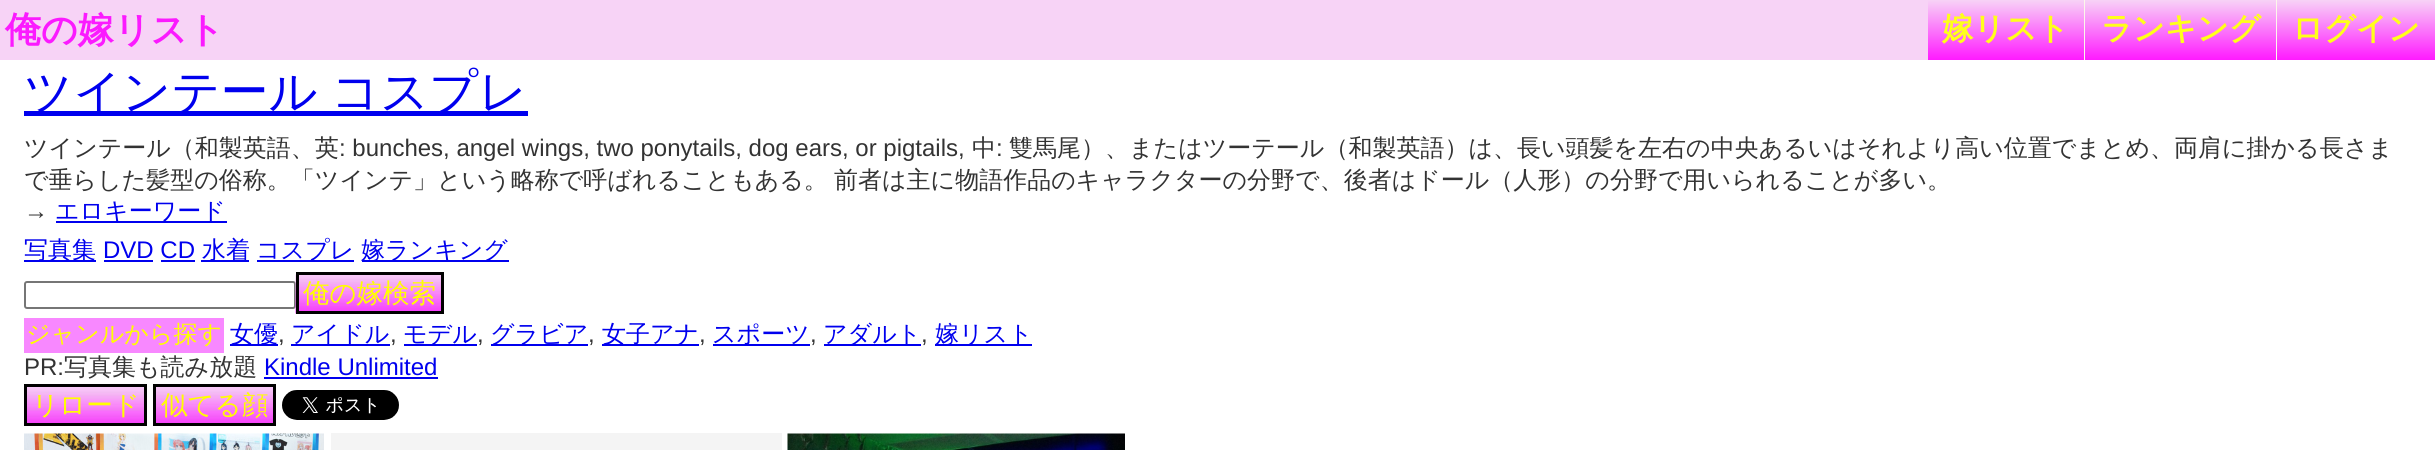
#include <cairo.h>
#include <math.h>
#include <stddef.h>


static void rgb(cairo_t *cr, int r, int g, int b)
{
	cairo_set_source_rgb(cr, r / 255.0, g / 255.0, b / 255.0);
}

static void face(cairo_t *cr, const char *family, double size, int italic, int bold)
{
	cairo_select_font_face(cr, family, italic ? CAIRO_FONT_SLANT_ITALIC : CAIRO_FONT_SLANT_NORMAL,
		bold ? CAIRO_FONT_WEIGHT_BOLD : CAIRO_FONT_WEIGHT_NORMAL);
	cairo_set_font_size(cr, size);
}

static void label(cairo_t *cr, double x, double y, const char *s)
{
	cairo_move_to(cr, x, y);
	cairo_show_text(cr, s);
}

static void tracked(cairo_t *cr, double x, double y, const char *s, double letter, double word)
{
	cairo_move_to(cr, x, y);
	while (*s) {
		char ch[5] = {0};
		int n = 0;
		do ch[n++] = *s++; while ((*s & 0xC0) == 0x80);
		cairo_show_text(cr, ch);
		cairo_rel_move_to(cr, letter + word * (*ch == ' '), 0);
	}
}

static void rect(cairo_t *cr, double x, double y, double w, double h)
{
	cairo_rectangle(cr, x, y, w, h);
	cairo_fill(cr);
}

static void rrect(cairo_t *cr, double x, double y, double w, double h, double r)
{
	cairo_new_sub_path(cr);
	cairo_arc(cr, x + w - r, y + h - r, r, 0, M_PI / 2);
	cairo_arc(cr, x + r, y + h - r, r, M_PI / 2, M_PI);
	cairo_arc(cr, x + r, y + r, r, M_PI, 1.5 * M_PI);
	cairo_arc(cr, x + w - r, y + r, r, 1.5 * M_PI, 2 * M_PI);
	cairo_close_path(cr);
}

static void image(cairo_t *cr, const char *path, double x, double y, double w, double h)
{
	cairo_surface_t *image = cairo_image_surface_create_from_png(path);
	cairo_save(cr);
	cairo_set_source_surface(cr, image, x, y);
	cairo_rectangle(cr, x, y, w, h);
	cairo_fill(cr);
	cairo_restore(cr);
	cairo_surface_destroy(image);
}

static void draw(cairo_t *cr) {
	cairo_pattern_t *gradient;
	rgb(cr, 255, 255, 255);
	cairo_paint(cr);
	rgb(cr, 247, 211, 246);
	rect(cr, 0, 0, 1928, 60);
	face(cr, "WenQuanYi Zen Hei", 36, 0, 1);
	rgb(cr, 251, 26, 255);
	label(cr, 5, 42, "俺の嫁リスト");
	gradient = cairo_pattern_create_linear(2006, 0, 2006, 60);
	cairo_pattern_add_color_stop_rgba(gradient, 0, 0.969, 0.827, 0.965, 1);
	cairo_pattern_add_color_stop_rgba(gradient, 1, 1, 0.102, 1, 1);
	cairo_set_source(cr, gradient);
	cairo_pattern_destroy(gradient);
	rect(cr, 1928, 0, 156, 60);
	rgb(cr, 251, 248, 233);
	rect(cr, 2084, 0, 1, 60);
	face(cr, "WenQuanYi Zen Hei", 31.25, 0, 1);
	rgb(cr, 255, 255, 26);
	label(cr, 1942, 39, "嫁リスト");
	gradient = cairo_pattern_create_linear(2180, 0, 2180, 60);
	cairo_pattern_add_color_stop_rgba(gradient, 0, 0.969, 0.827, 0.965, 1);
	cairo_pattern_add_color_stop_rgba(gradient, 1, 1, 0.102, 1, 1);
	cairo_set_source(cr, gradient);
	cairo_pattern_destroy(gradient);
	rect(cr, 2085, 0, 191, 60);
	rgb(cr, 251, 248, 233);
	rect(cr, 2276, 0, 1, 60);
	rgb(cr, 255, 255, 26);
	label(cr, 2101, 39, "ランキング");
	gradient = cairo_pattern_create_linear(2356, 0, 2356, 60);
	cairo_pattern_add_color_stop_rgba(gradient, 0, 0.969, 0.827, 0.965, 1);
	cairo_pattern_add_color_stop_rgba(gradient, 1, 1, 0.102, 1, 1);
	cairo_set_source(cr, gradient);
	cairo_pattern_destroy(gradient);
	rect(cr, 2277, 0, 158, 60);
	rgb(cr, 255, 255, 26);
	label(cr, 2292, 39, "ログイン");
	rgb(cr, 0, 0, 238);
	rect(cr, 24, 111, 504, 5);
	face(cr, "WenQuanYi Zen Hei Medium", 48, 0, 0);
	tracked(cr, 24, 108, "ツインテール コスプレ", 0, -1);
	face(cr, "WenQuanYi Zen Hei Medium", 24, 0, 0);
	rgb(cr, 51, 51, 51);
	label(cr, 24, 156, "ツインテール（和製英語、英");
	face(cr, "Liberation Sans", 24, 0, 0);
	label(cr, 339, 156, ": bunches, angel wings, two ponytails, dog ears, or pigtails,");
	face(cr, "WenQuanYi Zen Hei Medium", 24, 0, 0);
	label(cr, 972, 156, "中");
	face(cr, "Liberation Sans", 24, 0, 0);
	label(cr, 996, 156, ":");
	face(cr, "WenQuanYi Zen Hei Medium", 24, 0, 0);
	label(cr, 1009, 156, "雙馬尾）、またはツーテール（和製英語）は、長い頭髪を左右の中央あるいはそれより高い位置でまとめ、両肩に掛かる長さま");
	tracked(cr, 24, 188, "で垂らした髪型の俗称。「ツインテ」という略称で呼ばれることもある。 前者は主に物語作品のキャラクターの分野で、後者はドール（人形）の分野で用いられることが多い。", 0, -1);
	face(cr, "Liberation Sans", 24, 0, 0);
	label(cr, 24, 219, "→");
	rgb(cr, 0, 0, 238);
	rect(cr, 56, 221, 171, 2);
	face(cr, "WenQuanYi Zen Hei Medium", 24, 0, 0);
	label(cr, 55, 219, "エロキーワード");
	rect(cr, 24, 260, 72, 2);
	label(cr, 24, 258, "写真集");
	face(cr, "Liberation Sans", 24, 0, 0);
	label(cr, 103, 258, "DVD CD");
	rect(cr, 104, 260, 49, 2);
	rect(cr, 201, 260, 48, 2);
	face(cr, "WenQuanYi Zen Hei Medium", 24, 0, 0);
	label(cr, 202, 258, "水着");
	rect(cr, 257, 260, 97, 2);
	label(cr, 256, 258, "コスプレ");
	rect(cr, 362, 260, 147, 2);
	label(cr, 361, 258, "嫁ランキング");
	rect(cr, 161, 260, 34, 2);
	rrect(cr, 25, 282, 270, 26, 2);
	rgb(cr, 118, 118, 118);
	cairo_stroke(cr);
	image(cr, "image0.png", 295, 274, 146, 40);
	cairo_rectangle(cr, 297.5, 273.5, 145, 39);
	rgb(cr, 0, 0, 0);
	cairo_set_line_width(cr, 3);
	cairo_stroke(cr);
	face(cr, "WenQuanYi Zen Hei Medium", 26.5, 0, 0);
	rgb(cr, 255, 255, 0);
	label(cr, 303, 302, "俺の嫁検索");
	rgb(cr, 248, 136, 255);
	rect(cr, 24, 318, 200, 35);
	face(cr, "WenQuanYi Zen Hei Medium", 24, 0, 0);
	rgb(cr, 255, 255, 0);
	label(cr, 26, 342, "ジャンルから探す");
	rgb(cr, 0, 0, 238);
	rect(cr, 230, 344, 48, 2);
	label(cr, 230, 342, "女優");
	face(cr, "Liberation Sans", 24, 0, 0);
	rgb(cr, 51, 51, 51);
	label(cr, 278, 342, ",");
	rgb(cr, 0, 0, 238);
	rect(cr, 291, 344, 99, 2);
	face(cr, "WenQuanYi Zen Hei Medium", 24, 0, 0);
	label(cr, 291, 342, "アイドル");
	face(cr, "Liberation Sans", 24, 0, 0);
	rgb(cr, 51, 51, 51);
	label(cr, 390, 342, ",");
	rgb(cr, 0, 0, 238);
	rect(cr, 404, 344, 73, 2);
	face(cr, "WenQuanYi Zen Hei Medium", 24, 0, 0);
	label(cr, 403, 342, "モデル");
	face(cr, "Liberation Sans", 24, 0, 0);
	rgb(cr, 51, 51, 51);
	label(cr, 477, 342, ",");
	rgb(cr, 0, 0, 238);
	rect(cr, 491, 344, 97, 2);
	face(cr, "WenQuanYi Zen Hei Medium", 24, 0, 0);
	label(cr, 490, 342, "グラビア");
	face(cr, "Liberation Sans", 24, 0, 0);
	rgb(cr, 51, 51, 51);
	label(cr, 588, 342, ",");
	rgb(cr, 0, 0, 238);
	rect(cr, 602, 344, 97, 2);
	face(cr, "WenQuanYi Zen Hei Medium", 24, 0, 0);
	label(cr, 602, 342, "女子アナ");
	face(cr, "Liberation Sans", 24, 0, 0);
	rgb(cr, 51, 51, 51);
	label(cr, 699, 342, ",");
	rgb(cr, 0, 0, 238);
	rect(cr, 713, 344, 97, 2);
	face(cr, "WenQuanYi Zen Hei Medium", 24, 0, 0);
	label(cr, 712, 342, "スポーツ");
	face(cr, "Liberation Sans", 24, 0, 0);
	rgb(cr, 51, 51, 51);
	label(cr, 810, 342, ",");
	rgb(cr, 0, 0, 238);
	rect(cr, 824, 344, 97, 2);
	face(cr, "WenQuanYi Zen Hei Medium", 24, 0, 0);
	label(cr, 823, 342, "アダルト");
	face(cr, "Liberation Sans", 24, 0, 0);
	rgb(cr, 51, 51, 51);
	label(cr, 921, 342, ",");
	rgb(cr, 0, 0, 238);
	rect(cr, 935, 344, 97, 2);
	face(cr, "WenQuanYi Zen Hei Medium", 24, 0, 0);
	label(cr, 935, 342, "嫁リスト");
	face(cr, "Liberation Sans", 24, 0, 0);
	rgb(cr, 51, 51, 51);
	label(cr, 24, 375, "PR:");
	face(cr, "WenQuanYi Zen Hei Medium", 24, 0, 0);
	label(cr, 64, 375, "写真集も読み放題");
	face(cr, "Liberation Sans", 24, 0, 0);
	rgb(cr, 0, 0, 238);
	label(cr, 264, 375, "Kindle Unlimited");
	rect(cr, 264, 377, 174, 2);
	image(cr, "image1.png", 27, 387, 117, 36);
	cairo_rectangle(cr, 25.5, 385.5, 120, 39);
	rgb(cr, 0, 0, 0);
	cairo_stroke(cr);
	face(cr, "WenQuanYi Zen Hei Medium", 26.5, 0, 0);
	rgb(cr, 255, 255, 0);
	label(cr, 32, 414, "リロード");
	image(cr, "image1.png", 156, 387, 117, 36);
	cairo_rectangle(cr, 154.5, 385.5, 120, 39);
	rgb(cr, 0, 0, 0);
	cairo_stroke(cr);
	rgb(cr, 255, 255, 0);
	label(cr, 161, 414, "似てる顔");
	image(cr, "image2.png", 282, 390, 117, 30);
	image(cr, "image3.png", 24, 433, 300, 17);
	rgb(cr, 244, 244, 244);
	rect(cr, 331, 433, 451, 17);
	image(cr, "image4.png", 787, 433, 338, 17);
}

int main(void) {
	cairo_surface_t *surface = cairo_image_surface_create(CAIRO_FORMAT_RGB24, 2435, 450);
	cairo_t *cr = cairo_create(surface);
	cairo_font_options_t *options = cairo_font_options_create();
	cairo_font_options_set_hint_metrics(options, CAIRO_HINT_METRICS_OFF);
	cairo_font_options_set_hint_style(options, CAIRO_HINT_STYLE_NONE);
	cairo_set_font_options(cr, options);
	cairo_set_miter_limit(cr, 4);
	draw(cr);
	cairo_surface_write_to_png(surface, "render.png");
	cairo_font_options_destroy(options);
	cairo_destroy(cr);
	cairo_surface_destroy(surface);
	return 0;
}
